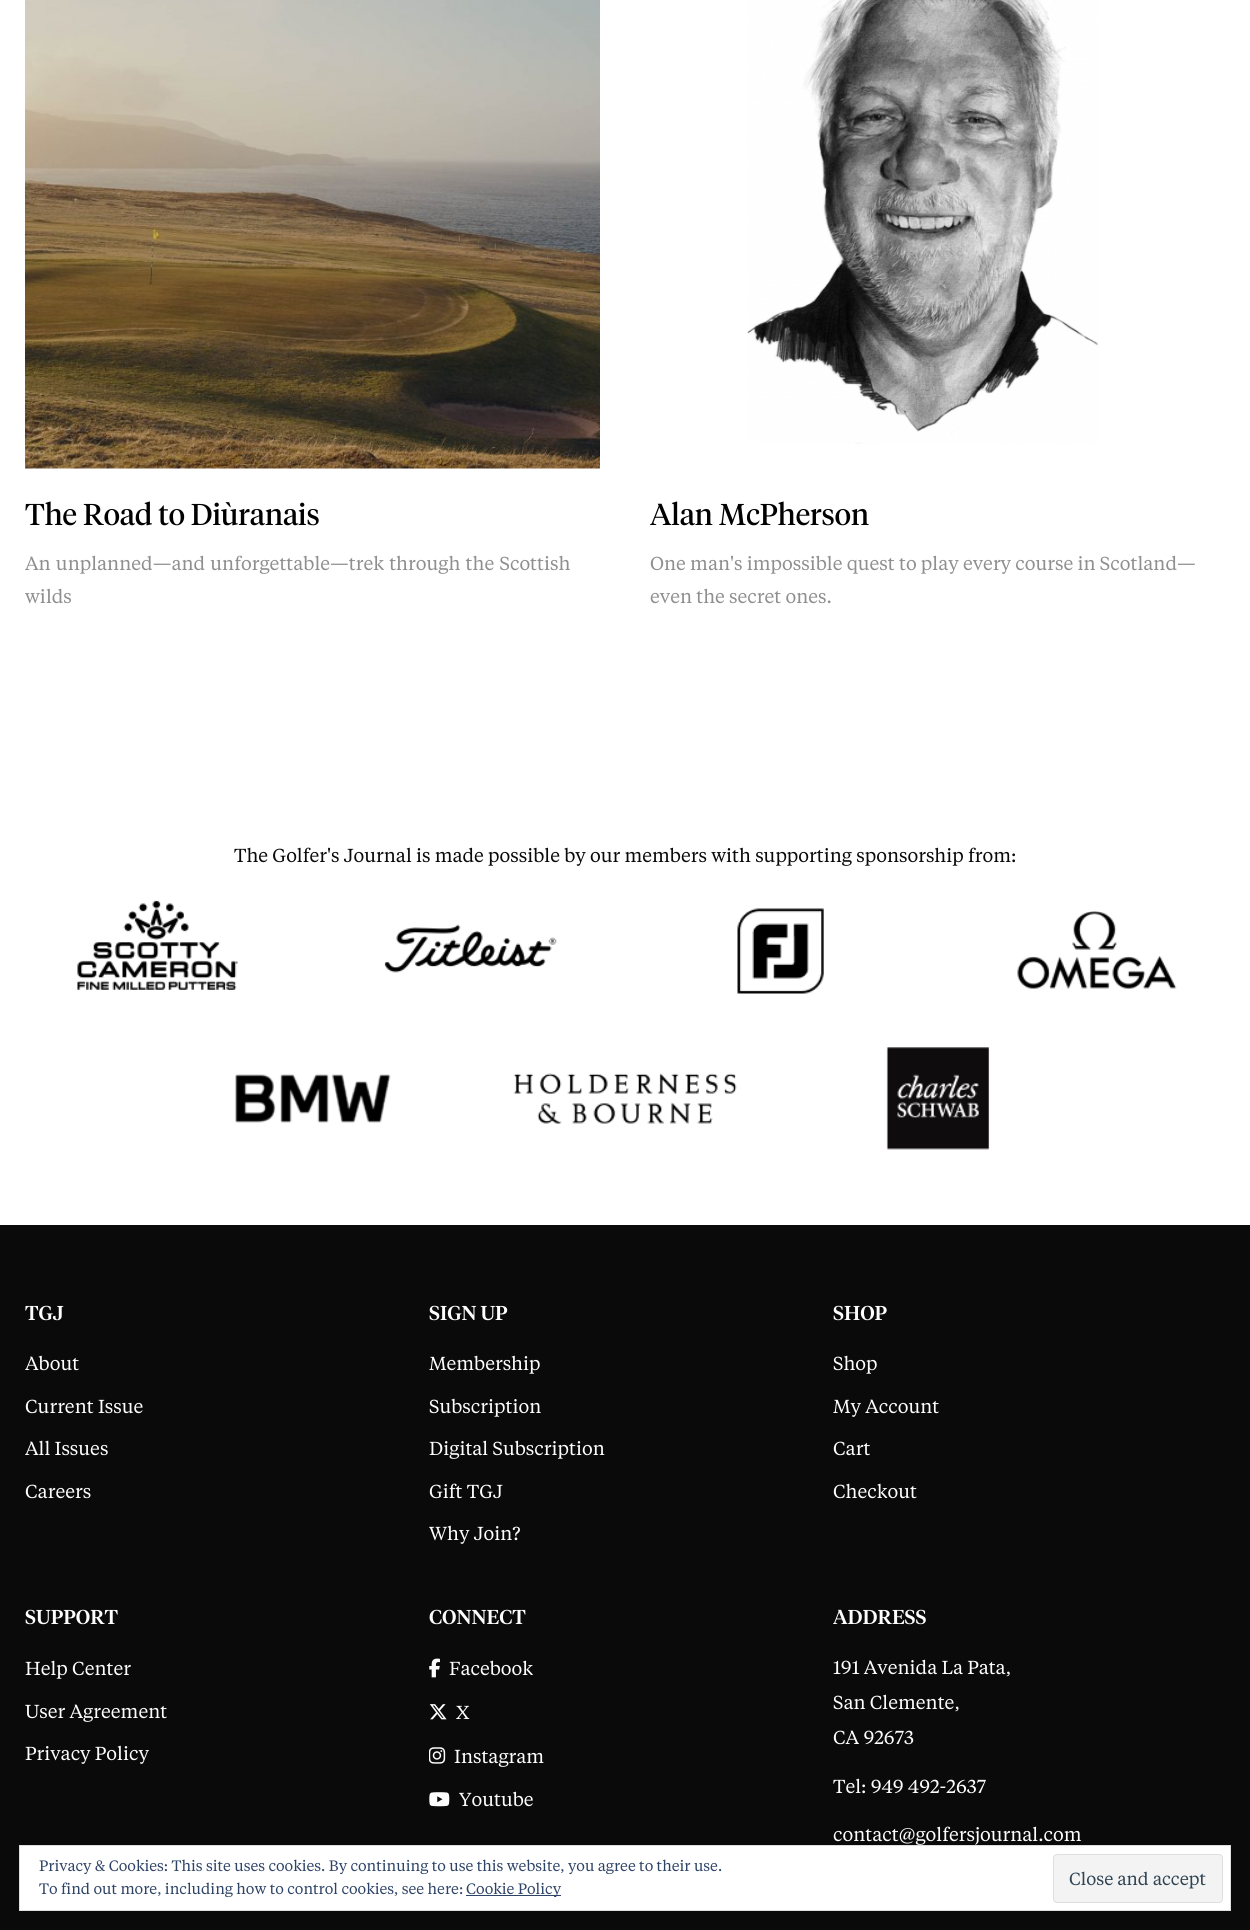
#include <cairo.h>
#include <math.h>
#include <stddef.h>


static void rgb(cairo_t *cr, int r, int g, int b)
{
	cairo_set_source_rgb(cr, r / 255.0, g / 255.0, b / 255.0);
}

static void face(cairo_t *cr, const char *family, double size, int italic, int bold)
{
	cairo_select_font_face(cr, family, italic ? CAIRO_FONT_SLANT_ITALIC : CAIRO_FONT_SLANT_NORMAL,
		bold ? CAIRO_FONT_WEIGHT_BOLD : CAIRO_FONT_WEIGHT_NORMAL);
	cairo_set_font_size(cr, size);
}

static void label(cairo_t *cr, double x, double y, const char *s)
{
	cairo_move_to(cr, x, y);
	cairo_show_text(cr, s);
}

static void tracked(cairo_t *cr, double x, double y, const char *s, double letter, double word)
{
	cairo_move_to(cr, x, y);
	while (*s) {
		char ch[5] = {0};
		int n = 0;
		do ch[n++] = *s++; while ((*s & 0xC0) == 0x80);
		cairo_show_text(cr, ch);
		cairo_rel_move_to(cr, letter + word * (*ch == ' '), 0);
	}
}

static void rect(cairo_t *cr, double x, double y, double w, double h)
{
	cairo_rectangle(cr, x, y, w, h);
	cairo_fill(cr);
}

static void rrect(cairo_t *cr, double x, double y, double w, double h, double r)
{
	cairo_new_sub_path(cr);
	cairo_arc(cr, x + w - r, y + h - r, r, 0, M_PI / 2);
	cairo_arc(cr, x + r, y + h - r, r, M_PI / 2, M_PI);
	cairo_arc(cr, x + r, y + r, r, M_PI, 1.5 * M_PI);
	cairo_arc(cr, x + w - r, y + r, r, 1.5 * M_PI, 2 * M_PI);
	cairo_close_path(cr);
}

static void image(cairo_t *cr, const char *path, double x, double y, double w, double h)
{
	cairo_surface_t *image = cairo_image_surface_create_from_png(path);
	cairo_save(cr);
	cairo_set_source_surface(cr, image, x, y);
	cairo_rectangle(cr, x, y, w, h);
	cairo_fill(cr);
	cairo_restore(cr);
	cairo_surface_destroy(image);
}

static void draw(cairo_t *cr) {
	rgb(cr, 255, 255, 255);
	cairo_paint(cr);
	image(cr, "image0.png", 25, 0, 575, 469);
	face(cr, "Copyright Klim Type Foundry", 30, 0, 0);
	rgb(cr, 0, 0, 0);
	label(cr, 25, 525, "The Road to Diùranais");
	face(cr, "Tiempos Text", 18.75, 0, 0);
	rgb(cr, 143, 143, 143);
	tracked(cr, 25, 570, "An unplanned—and unforgettable—trek through the Scottish", 0, 1);
	label(cr, 25, 603, "wilds");
	image(cr, "image1.png", 747, 0, 352, 444);
	face(cr, "Copyright Klim Type Foundry", 30, 0, 0);
	rgb(cr, 0, 0, 0);
	label(cr, 650, 525, "Alan McPherson");
	face(cr, "Tiempos Text", 18.75, 0, 0);
	rgb(cr, 143, 143, 143);
	label(cr, 650, 570, "One man's impossible quest to play every course in Scotland—");
	label(cr, 650, 603, "even the secret ones.");
	rgb(cr, 10, 10, 10);
	label(cr, 234, 862, "The Golfer's Journal is made possible by our members with supporting sponsorship from:");
	image(cr, "image2.png", 77, 900, 161, 90);
	image(cr, "image3.png", 384, 924, 173, 49);
	image(cr, "image4.png", 737, 908, 87, 86);
	image(cr, "image5.png", 1017, 911, 160, 78);
	image(cr, "image6.png", 235, 1074, 156, 49);
	image(cr, "image7.png", 513, 1073, 224, 51);
	image(cr, "image8.png", 886, 1047, 104, 103);
	rect(cr, 0, 1225, 1250, 705);
	face(cr, "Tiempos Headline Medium", 20, 0, 0);
	rgb(cr, 254, 254, 254);
	label(cr, 25, 1320, "TGJ");
	face(cr, "Tiempos Text", 18.75, 0, 0);
	label(cr, 25, 1370, "About");
	label(cr, 25, 1413, "Current Issue");
	label(cr, 25, 1455, "All Issues");
	label(cr, 25, 1498, "Careers");
	face(cr, "Tiempos Headline Medium", 20, 0, 0);
	label(cr, 429, 1320, "SIGN UP");
	face(cr, "Tiempos Text", 18.75, 0, 0);
	label(cr, 429, 1370, "Membership");
	label(cr, 429, 1413, "Subscription");
	label(cr, 429, 1455, "Digital Subscription");
	label(cr, 429, 1498, "Gift TGJ");
	label(cr, 429, 1540, "Why Join?");
	face(cr, "Tiempos Headline Medium", 20, 0, 0);
	label(cr, 833, 1320, "SHOP");
	face(cr, "Tiempos Text", 18.75, 0, 0);
	label(cr, 833, 1370, "Shop");
	label(cr, 833, 1413, "My Account");
	label(cr, 833, 1455, "Cart");
	label(cr, 833, 1498, "Checkout");
	face(cr, "Tiempos Headline Medium", 20, 0, 0);
	label(cr, 25, 1624, "SUPPORT");
	face(cr, "Tiempos Text", 18.75, 0, 0);
	label(cr, 25, 1675, "Help Center");
	label(cr, 25, 1718, "User Agreement");
	label(cr, 25, 1760, "Privacy Policy");
	face(cr, "Tiempos Headline Medium", 20, 0, 0);
	label(cr, 429, 1624, "CONNECT");
	image(cr, "image9.png", 429, 1658, 11, 20);
	face(cr, "Tiempos Text", 18.75, 0, 0);
	label(cr, 449, 1675, "Facebook");
	image(cr, "image10.png", 429, 1704, 18, 16);
	label(cr, 456, 1719, "X");
	image(cr, "image11.png", 429, 1747, 17, 17);
	label(cr, 454, 1763, "Instagram");
	image(cr, "image12.png", 429, 1792, 21, 15);
	label(cr, 459, 1806, "Youtube");
	face(cr, "Tiempos Headline Medium", 20, 0, 0);
	label(cr, 833, 1624, "ADDRESS");
	face(cr, "Tiempos Text", 18.75, 0, 0);
	label(cr, 833, 1674, "191 Avenida La Pata,");
	label(cr, 833, 1709, "San Clemente,");
	label(cr, 833, 1744, "CA 92673");
	label(cr, 833, 1793, "Tel: 949 492-2637");
	label(cr, 833, 1841, "contact@golfersjournal.com");
	rgb(cr, 255, 255, 255);
	cairo_rectangle(cr, 19.5, 1845.5, 1211, 65);
	cairo_fill_preserve(cr);
	rgb(cr, 222, 222, 222);
	cairo_set_line_width(cr, 1);
	cairo_stroke(cr);
	face(cr, "Tiempos Text", 15, 0, 0);
	rgb(cr, 46, 68, 103);
	label(cr, 39, 1871, "Privacy & Cookies: This site uses cookies. By continuing to use this website, you agree to their use.");
	label(cr, 39, 1894, "To find out more, including how to control cookies, see here:");
	rect(cr, 466, 1895, 95, 1);
	label(cr, 466, 1894, "Cookie Policy");
	rgb(cr, 243, 243, 243);
	rrect(cr, 1053.5, 1854.5, 169, 48, 3.5);
	cairo_fill_preserve(cr);
	rgb(cr, 222, 222, 222);
	cairo_stroke(cr);
	face(cr, "Tiempos Text", 17.5, 0, 0);
	rgb(cr, 46, 68, 83);
	label(cr, 1069, 1885, "Close and accept");
}

int main(void) {
	cairo_surface_t *surface = cairo_image_surface_create(CAIRO_FORMAT_RGB24, 1250, 1930);
	cairo_t *cr = cairo_create(surface);
	cairo_font_options_t *options = cairo_font_options_create();
	cairo_font_options_set_hint_metrics(options, CAIRO_HINT_METRICS_OFF);
	cairo_font_options_set_hint_style(options, CAIRO_HINT_STYLE_NONE);
	cairo_set_font_options(cr, options);
	cairo_set_miter_limit(cr, 4);
	draw(cr);
	cairo_surface_write_to_png(surface, "render.png");
	cairo_font_options_destroy(options);
	cairo_destroy(cr);
	cairo_surface_destroy(surface);
	return 0;
}
